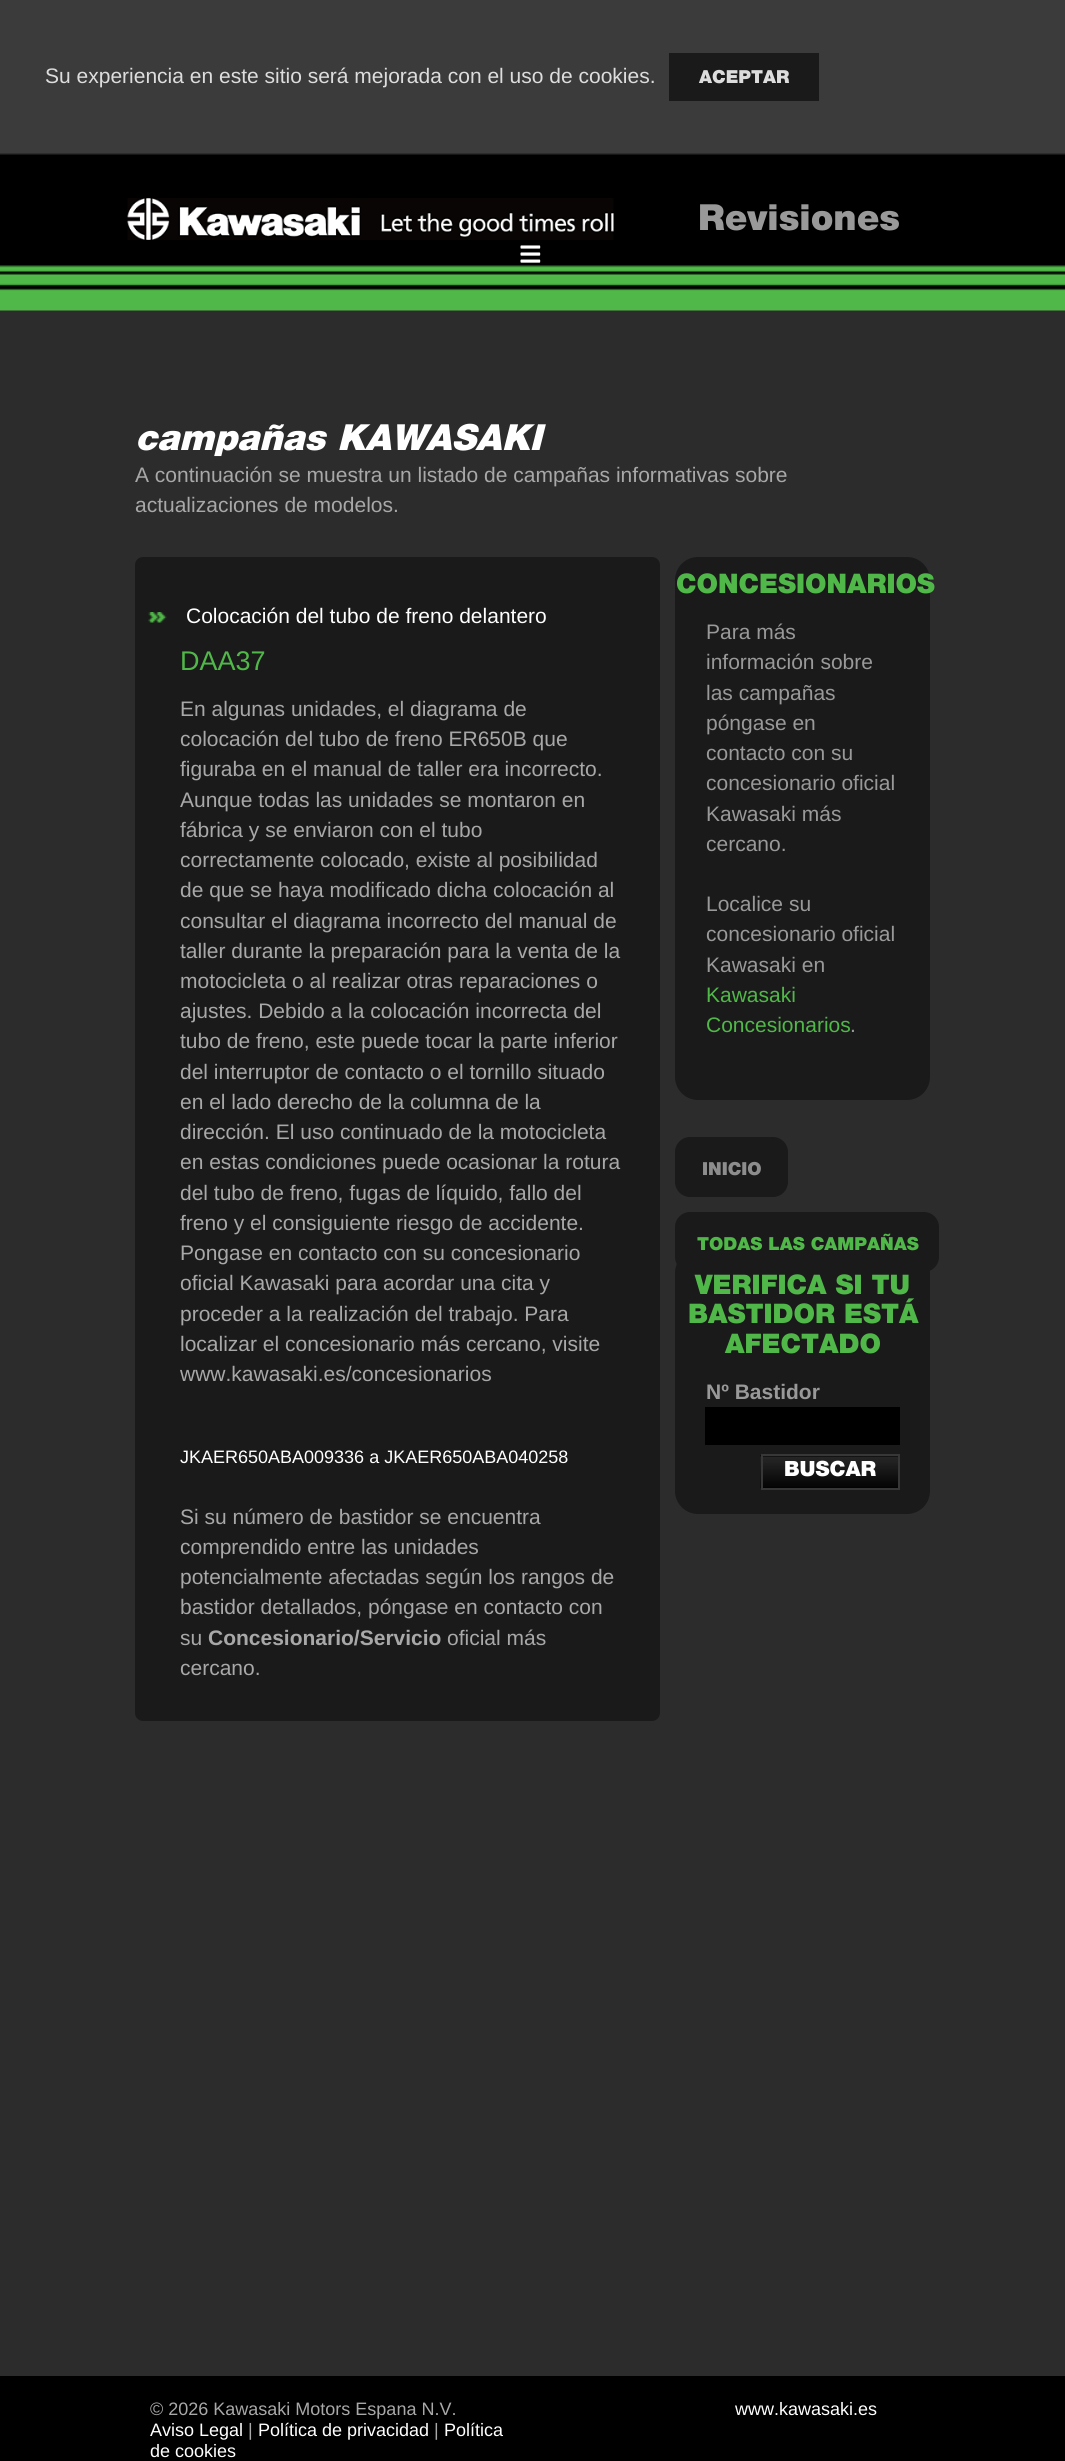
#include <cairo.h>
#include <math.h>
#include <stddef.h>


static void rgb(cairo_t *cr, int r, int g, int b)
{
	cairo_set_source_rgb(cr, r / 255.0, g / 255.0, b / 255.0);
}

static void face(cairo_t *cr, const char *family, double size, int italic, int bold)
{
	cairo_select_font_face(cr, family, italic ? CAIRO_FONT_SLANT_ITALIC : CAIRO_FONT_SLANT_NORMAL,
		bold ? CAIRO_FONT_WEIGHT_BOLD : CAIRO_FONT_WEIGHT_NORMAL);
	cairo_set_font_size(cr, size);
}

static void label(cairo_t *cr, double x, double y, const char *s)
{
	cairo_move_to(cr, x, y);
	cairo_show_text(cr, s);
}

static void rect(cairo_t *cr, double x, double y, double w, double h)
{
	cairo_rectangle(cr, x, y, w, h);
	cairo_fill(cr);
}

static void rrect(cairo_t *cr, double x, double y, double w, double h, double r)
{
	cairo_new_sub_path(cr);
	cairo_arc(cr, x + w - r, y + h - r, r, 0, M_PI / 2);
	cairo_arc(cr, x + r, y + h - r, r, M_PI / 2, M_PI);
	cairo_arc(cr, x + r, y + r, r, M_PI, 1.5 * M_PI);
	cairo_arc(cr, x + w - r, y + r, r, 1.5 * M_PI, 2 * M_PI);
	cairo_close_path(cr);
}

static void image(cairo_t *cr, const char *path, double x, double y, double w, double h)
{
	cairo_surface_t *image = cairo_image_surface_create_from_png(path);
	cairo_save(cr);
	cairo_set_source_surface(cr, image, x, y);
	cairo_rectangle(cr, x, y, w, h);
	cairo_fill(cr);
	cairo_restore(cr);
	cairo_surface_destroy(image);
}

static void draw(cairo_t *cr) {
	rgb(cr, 44, 44, 44);
	cairo_paint(cr);
	rgb(cr, 59, 59, 59);
	rect(cr, 0, 0, 1065, 153);
	face(cr, "Liberation Sans", 21, 0, 0);
	rgb(cr, 221, 221, 221);
	label(cr, 45, 83, "Su experiencia en este sitio será mejorada con el uso de cookies.");
	rgb(cr, 26, 26, 26);
	rect(cr, 669, 53, 150, 48);
	face(cr, "Helvetica Neue Black", 18, 0, 0);
	rgb(cr, 221, 221, 221);
	label(cr, 699, 83, "ACEPTAR");
	image(cr, "image0.png", 0, 154, 1065, 157);
	image(cr, "image1.png", 127, 198, 487, 42);
	face(cr, "Helvetica Neue Black", 36, 0, 0);
	rgb(cr, 153, 153, 153);
	label(cr, 698, 230, "Revisiones");
	image(cr, "image2.png", 520, 245, 21, 18);
	face(cr, "Helvetica Neue Black", 36, 1, 0);
	rgb(cr, 255, 255, 255);
	label(cr, 135, 450, "campañas KAWASAKI");
	face(cr, "Liberation Sans", 21, 0, 0);
	rgb(cr, 168, 168, 168);
	label(cr, 135, 482, "A continuación se muestra un listado de campañas informativas sobre");
	label(cr, 135, 512, "actualizaciones de modelos.");
	rgb(cr, 26, 26, 26);
	rrect(cr, 135, 557, 525, 1164, 8);
	cairo_fill(cr);
	image(cr, "image3.png", 148, 612, 19, 11);
	rgb(cr, 255, 255, 255);
	label(cr, 186, 623, "Colocación del tubo de freno delantero");
	face(cr, "Liberation Sans", 27, 0, 0);
	rgb(cr, 80, 184, 72);
	label(cr, 180, 670, "DAA37");
	face(cr, "Liberation Sans", 21, 0, 0);
	rgb(cr, 168, 168, 168);
	label(cr, 180, 716, "En algunas unidades, el diagrama de");
	label(cr, 180, 746, "colocación del tubo de freno ER650B que");
	label(cr, 180, 776, "figuraba en el manual de taller era incorrecto.");
	label(cr, 180, 807, "Aunque todas las unidades se montaron en");
	label(cr, 180, 837, "fábrica y se enviaron con el tubo");
	label(cr, 180, 867, "correctamente colocado, existe al posibilidad");
	label(cr, 180, 897, "de que se haya modificado dicha colocación al");
	label(cr, 180, 928, "consultar el diagrama incorrecto del manual de");
	label(cr, 180, 958, "taller durante la preparación para la venta de la");
	label(cr, 180, 988, "motocicleta o al realizar otras reparaciones o");
	label(cr, 180, 1018, "ajustes. Debido a la colocación incorrecta del");
	label(cr, 180, 1048, "tubo de freno, este puede tocar la parte inferior");
	label(cr, 180, 1079, "del interruptor de contacto o el tornillo situado");
	label(cr, 180, 1109, "en el lado derecho de la columna de la");
	label(cr, 180, 1139, "dirección. El uso continuado de la motocicleta");
	label(cr, 180, 1169, "en estas condiciones puede ocasionar la rotura");
	label(cr, 180, 1200, "del tubo de freno, fugas de líquido, fallo del");
	label(cr, 180, 1230, "freno y el consiguiente riesgo de accidente.");
	label(cr, 180, 1260, "Pongase en contacto con su concesionario");
	label(cr, 180, 1290, "oficial Kawasaki para acordar una cita y");
	label(cr, 180, 1321, "proceder a la realización del trabajo. Para");
	label(cr, 180, 1351, "localizar el concesionario más cercano, visite");
	label(cr, 180, 1381, "www.kawasaki.es/concesionarios");
	face(cr, "Liberation Sans", 18, 0, 0);
	rgb(cr, 255, 255, 255);
	label(cr, 180, 1463, "JKAER650ABA009336 a JKAER650ABA040258");
	face(cr, "Liberation Sans", 21, 0, 0);
	rgb(cr, 168, 168, 168);
	label(cr, 180, 1524, "Si su número de bastidor se encuentra");
	label(cr, 180, 1554, "comprendido entre las unidades");
	label(cr, 180, 1584, "potencialmente afectadas según los rangos de");
	label(cr, 180, 1614, "bastidor detallados, póngase en contacto con");
	label(cr, 180, 1645, "su");
	face(cr, "Liberation Sans", 21, 0, 1);
	label(cr, 208, 1645, "Concesionario/Servicio");
	face(cr, "Liberation Sans", 21, 0, 0);
	label(cr, 447, 1645, "oficial más");
	label(cr, 180, 1675, "cercano.");
	rgb(cr, 26, 26, 26);
	rrect(cr, 675, 557, 255, 543, 23);
	cairo_fill(cr);
	face(cr, "Helvetica Neue Black", 27, 0, 0);
	rgb(cr, 80, 184, 72);
	label(cr, 676, 593, "CONCESIONARIOS");
	face(cr, "Liberation Sans", 21, 0, 0);
	rgb(cr, 153, 153, 153);
	label(cr, 706, 639, "Para más");
	label(cr, 706, 669, "información sobre");
	label(cr, 706, 700, "las campañas");
	label(cr, 706, 730, "póngase en");
	label(cr, 706, 760, "contacto con su");
	label(cr, 706, 790, "concesionario oficial");
	label(cr, 706, 821, "Kawasaki más");
	label(cr, 706, 851, "cercano.");
	label(cr, 706, 911, "Localice su");
	label(cr, 706, 941, "concesionario oficial");
	label(cr, 706, 972, "Kawasaki en");
	rgb(cr, 80, 184, 72);
	label(cr, 706, 1002, "Kawasaki");
	label(cr, 706, 1032, "Concesionarios");
	rgb(cr, 153, 153, 153);
	label(cr, 850, 1032, ".");
	rgb(cr, 26, 26, 26);
	rrect(cr, 675, 1137, 113, 60, 15);
	cairo_fill(cr);
	face(cr, "Helvetica Neue Black", 18, 0, 0);
	rgb(cr, 141, 141, 141);
	label(cr, 702, 1175, "INICIO");
	rgb(cr, 26, 26, 26);
	rrect(cr, 675, 1250, 255, 264, 23);
	cairo_fill(cr);
	rrect(cr, 675, 1212, 264, 60, 15);
	cairo_fill(cr);
	rgb(cr, 80, 184, 72);
	label(cr, 697, 1250, "TODAS LAS CAMPAÑAS");
	face(cr, "Helvetica Neue Black", 27, 0, 0);
	label(cr, 695, 1294, "VERIFICA SI TU");
	label(cr, 688, 1323, "BASTIDOR ESTÁ");
	label(cr, 725, 1353, "AFECTADO");
	face(cr, "Liberation Sans", 21, 0, 1);
	rgb(cr, 153, 153, 153);
	label(cr, 706, 1399, "Nº Bastidor");
	rgb(cr, 0, 0, 0);
	rect(cr, 705, 1407, 195, 38);
	image(cr, "image4.png", 760, 1455, 138, 33);
	cairo_rectangle(cr, 762, 1455, 137, 34);
	rgb(cr, 55, 55, 55);
	cairo_stroke(cr);
	face(cr, "Helvetica Neue Black", 21, 0, 0);
	rgb(cr, 255, 255, 255);
	label(cr, 784, 1476, "BUSCAR");
	rgb(cr, 0, 0, 0);
	rect(cr, 0, 2376, 1065, 85);
	face(cr, "Liberation Sans", 18, 0, 0);
	rgb(cr, 168, 168, 168);
	label(cr, 150, 2415, "© 2026 Kawasaki Motors Espana N.V.");
	rgb(cr, 255, 255, 255);
	label(cr, 150, 2436, "Aviso Legal");
	rgb(cr, 168, 168, 168);
	label(cr, 248, 2436, "|");
	rgb(cr, 255, 255, 255);
	label(cr, 258, 2436, "Política de privacidad");
	rgb(cr, 168, 168, 168);
	label(cr, 434, 2436, "|");
	rgb(cr, 255, 255, 255);
	label(cr, 444, 2436, "Política");
	label(cr, 150, 2457, "de cookies");
	label(cr, 735, 2415, "www.kawasaki.es");
}

int main(void) {
	cairo_surface_t *surface = cairo_image_surface_create(CAIRO_FORMAT_RGB24, 1065, 2461);
	cairo_t *cr = cairo_create(surface);
	cairo_font_options_t *options = cairo_font_options_create();
	cairo_font_options_set_hint_metrics(options, CAIRO_HINT_METRICS_OFF);
	cairo_font_options_set_hint_style(options, CAIRO_HINT_STYLE_NONE);
	cairo_set_font_options(cr, options);
	cairo_set_miter_limit(cr, 4);
	draw(cr);
	cairo_surface_write_to_png(surface, "render.png");
	cairo_font_options_destroy(options);
	cairo_destroy(cr);
	cairo_surface_destroy(surface);
	return 0;
}
